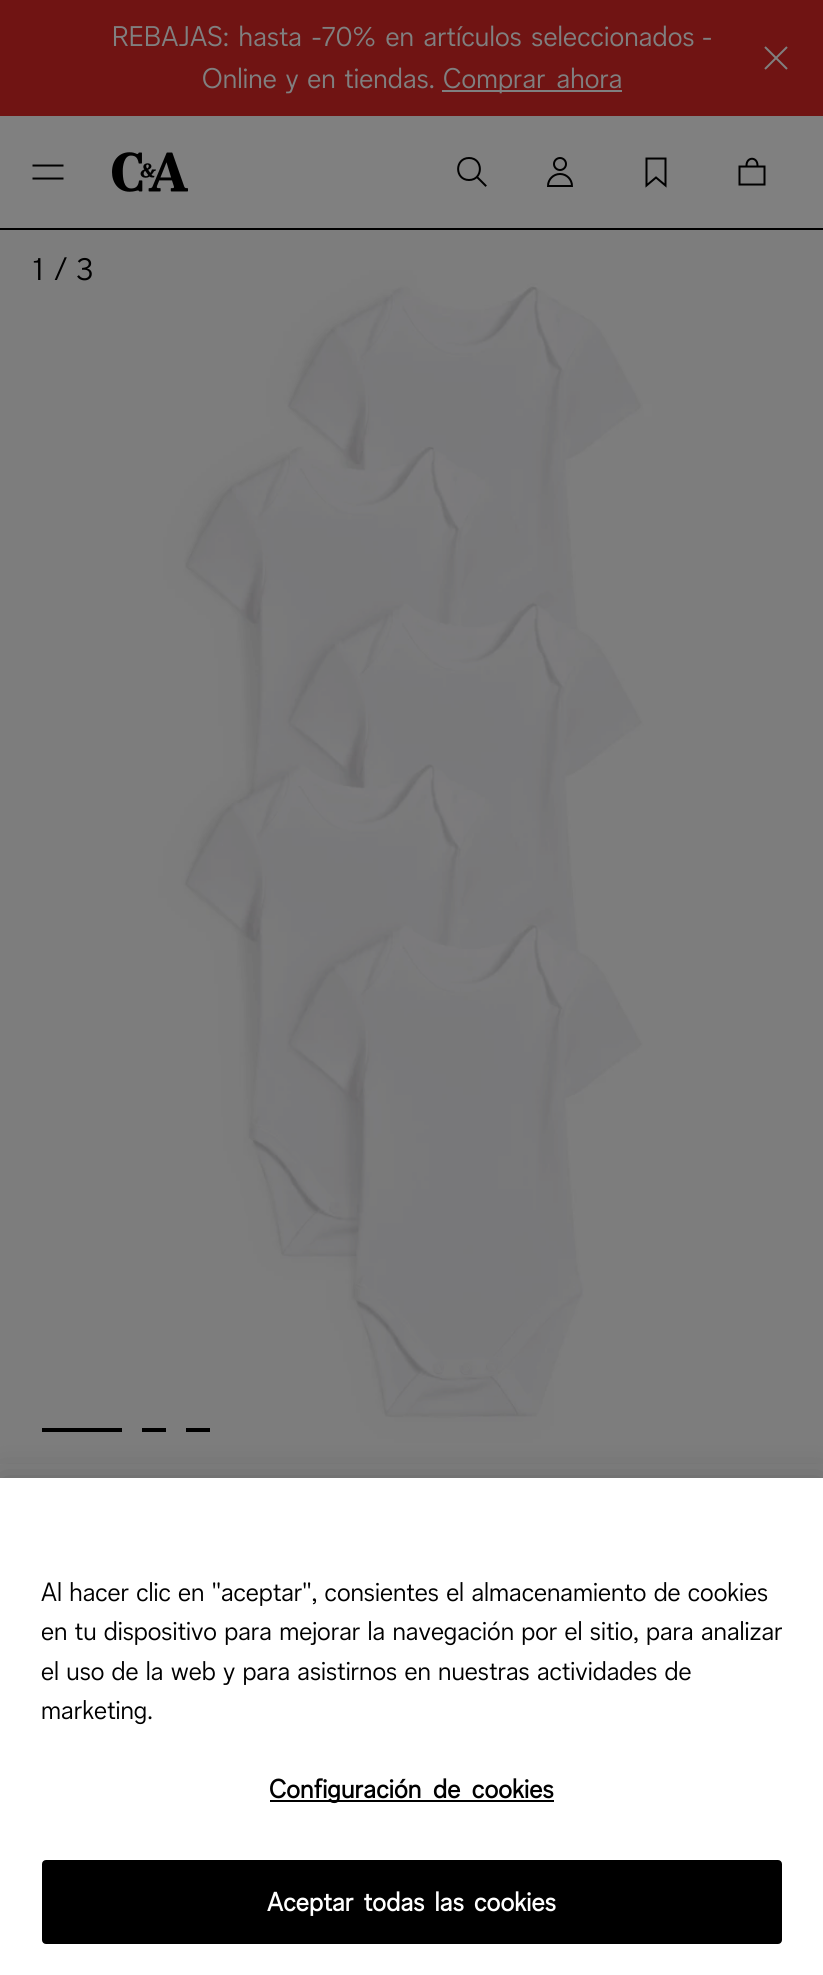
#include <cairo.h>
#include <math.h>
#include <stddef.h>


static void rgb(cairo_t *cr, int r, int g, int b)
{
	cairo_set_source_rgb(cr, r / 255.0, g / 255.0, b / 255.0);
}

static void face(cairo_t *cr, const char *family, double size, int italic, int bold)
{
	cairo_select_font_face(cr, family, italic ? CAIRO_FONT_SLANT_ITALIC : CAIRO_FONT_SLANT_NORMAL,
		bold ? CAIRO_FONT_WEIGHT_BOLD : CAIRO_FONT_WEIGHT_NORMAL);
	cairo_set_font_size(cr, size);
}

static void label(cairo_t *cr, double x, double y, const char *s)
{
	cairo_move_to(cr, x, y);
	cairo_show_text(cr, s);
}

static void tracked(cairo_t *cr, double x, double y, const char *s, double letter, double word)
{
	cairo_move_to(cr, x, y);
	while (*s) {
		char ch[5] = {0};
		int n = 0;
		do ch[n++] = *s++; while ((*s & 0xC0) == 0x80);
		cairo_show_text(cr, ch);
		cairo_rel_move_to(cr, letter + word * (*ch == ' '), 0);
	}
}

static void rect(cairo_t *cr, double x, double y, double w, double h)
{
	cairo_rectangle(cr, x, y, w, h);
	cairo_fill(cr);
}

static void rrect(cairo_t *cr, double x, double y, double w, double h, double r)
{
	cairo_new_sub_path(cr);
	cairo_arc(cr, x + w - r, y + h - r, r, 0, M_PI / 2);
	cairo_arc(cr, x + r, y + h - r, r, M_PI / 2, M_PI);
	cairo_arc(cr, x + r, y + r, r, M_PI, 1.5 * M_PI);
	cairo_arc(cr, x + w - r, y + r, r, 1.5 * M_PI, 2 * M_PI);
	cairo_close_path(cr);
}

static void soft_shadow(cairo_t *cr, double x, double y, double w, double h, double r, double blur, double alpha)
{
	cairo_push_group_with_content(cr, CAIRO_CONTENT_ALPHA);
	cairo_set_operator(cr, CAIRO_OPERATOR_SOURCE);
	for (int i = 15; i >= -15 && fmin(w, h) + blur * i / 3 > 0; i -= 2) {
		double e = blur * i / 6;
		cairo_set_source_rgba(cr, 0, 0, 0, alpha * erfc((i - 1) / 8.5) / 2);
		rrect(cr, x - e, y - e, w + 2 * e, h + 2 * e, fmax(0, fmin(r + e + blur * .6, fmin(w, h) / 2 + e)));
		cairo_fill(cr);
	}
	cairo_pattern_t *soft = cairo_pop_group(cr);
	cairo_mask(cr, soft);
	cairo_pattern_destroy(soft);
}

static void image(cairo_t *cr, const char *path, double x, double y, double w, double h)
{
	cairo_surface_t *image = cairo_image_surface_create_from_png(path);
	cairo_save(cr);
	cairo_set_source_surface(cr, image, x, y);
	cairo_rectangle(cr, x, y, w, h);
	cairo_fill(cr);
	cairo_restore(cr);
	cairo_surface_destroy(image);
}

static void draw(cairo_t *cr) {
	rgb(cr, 128, 128, 128);
	cairo_paint(cr);
	rgb(cr, 112, 20, 19);
	rect(cr, 0, 0, 823, 116);
	face(cr, "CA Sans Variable", 28, 0, 0);
	rgb(cr, 128, 128, 128);
	tracked(cr, 112, 46, "REBAJAS: hasta -70% en artículos seleccionados", 0.15, 1.5);
	tracked(cr, 702, 46, "-", 0.15, 0);
	tracked(cr, 202, 88, "Online y en tiendas.", 0.15, 0.5);
	rect(cr, 442, 90, 180, 2);
	tracked(cr, 443, 88, "Comprar ahora", 0.15, 3);
	cairo_new_path(cr);
	cairo_move_to(cr, 787, 47);
	cairo_line_to(cr, 765, 69);
	cairo_move_to(cr, 787, 69);
	cairo_line_to(cr, 765, 47);
	cairo_set_line_join(cr, CAIRO_LINE_JOIN_ROUND);
	cairo_stroke(cr);
	rgb(cr, 0, 0, 0);
	rect(cr, 0, 228, 823, 2);
	cairo_new_path(cr);
	cairo_move_to(cr, 33.5, 165.5);
	cairo_line_to(cr, 62.5, 165.5);
	cairo_move_to(cr, 33.5, 178.5);
	cairo_line_to(cr, 62.5, 178.5);
	cairo_set_line_cap(cr, CAIRO_LINE_CAP_SQUARE);
	cairo_stroke(cr);
	image(cr, "image0.png", 112, 152, 76, 40);
	cairo_new_path(cr);
	cairo_move_to(cr, 485.5, 185.5);
	cairo_line_to(cr, 477.5, 177.5);
	cairo_stroke(cr);
	cairo_new_path(cr);
	cairo_move_to(cr, 469, 180);
	cairo_curve_to(cr, 483.5, 180, 483.5, 158, 469, 158);
	cairo_curve_to(cr, 454.5, 158, 454.5, 180, 469, 180);
	cairo_close_path(cr);
	cairo_set_line_cap(cr, CAIRO_LINE_CAP_ROUND);
	cairo_stroke(cr);
	image(cr, "image1.png", 547, 157, 26, 30);
	cairo_new_path(cr);
	cairo_move_to(cr, 646.5, 158.5);
	cairo_line_to(cr, 665.5, 158.5);
	cairo_line_to(cr, 665.5, 185.5);
	cairo_line_to(cr, 656, 177.5);
	cairo_line_to(cr, 646.5, 185.5);
	cairo_close_path(cr);
	cairo_set_line_join(cr, CAIRO_LINE_JOIN_MITER);
	cairo_stroke(cr);
	cairo_new_path(cr);
	cairo_move_to(cr, 764.5, 184.5);
	cairo_line_to(cr, 739.5, 184.5);
	cairo_line_to(cr, 739.5, 166.5);
	cairo_line_to(cr, 764.5, 166.5);
	cairo_close_path(cr);
	cairo_move_to(cr, 746.5, 165.5);
	cairo_curve_to(cr, 746.5, 156.5, 757.5, 156.5, 757.5, 165.5);
	cairo_set_line_cap(cr, CAIRO_LINE_CAP_BUTT);
	cairo_stroke(cr);
	image(cr, "image2.png", 0, 230, 823, 1234);
	face(cr, "CA Sans Variable", 32, 0, 0);
	label(cr, 32, 280, "1 / 3");
	rect(cr, 42, 1428, 80, 4);
	rect(cr, 142, 1428, 24, 4);
	rect(cr, 186, 1428, 24, 4);
	rgb(cr, 0, 0, 0);
	soft_shadow(cr, 0, 1478, 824, 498, 0, 18, 0.2);
	rgb(cr, 255, 255, 255);
	rect(cr, 0, 1478, 823, 497);
	face(cr, "CA Sans Variable", 26, 0, 0);
	rgb(cr, 0, 0, 0);
	label(cr, 41, 1601, "Al hacer clic en \"aceptar\", consientes el almacenamiento de cookies");
	cairo_save(cr);
	cairo_rectangle(cr, 42, 1574, 740, 156);
	cairo_clip(cr);
	label(cr, 41, 1640, "en tu dispositivo para mejorar la navegación por el sitio, para analizar");
	cairo_restore(cr);
	label(cr, 41, 1680, "el uso de la web y para asistirnos en nuestras actividades de");
	label(cr, 41, 1719, "marketing.");
	rect(cr, 270, 1800, 284, 2);
	face(cr, "CA Sans Variable", 26, 0, 1);
	tracked(cr, 269, 1798, "Configuración de cookies", 0.25, 4);
	rrect(cr, 43, 1861, 738, 82, 3);
	cairo_fill_preserve(cr);
	cairo_stroke(cr);
	rgb(cr, 255, 255, 255);
	tracked(cr, 267, 1911, "Aceptar todas las cookies", 0.25, 2.5);
}

int main(void) {
	cairo_surface_t *surface = cairo_image_surface_create(CAIRO_FORMAT_RGB24, 823, 1975);
	cairo_t *cr = cairo_create(surface);
	cairo_font_options_t *options = cairo_font_options_create();
	cairo_font_options_set_hint_metrics(options, CAIRO_HINT_METRICS_OFF);
	cairo_font_options_set_hint_style(options, CAIRO_HINT_STYLE_NONE);
	cairo_set_font_options(cr, options);
	cairo_set_miter_limit(cr, 4);
	draw(cr);
	cairo_surface_write_to_png(surface, "render.png");
	cairo_font_options_destroy(options);
	cairo_destroy(cr);
	cairo_surface_destroy(surface);
	return 0;
}
